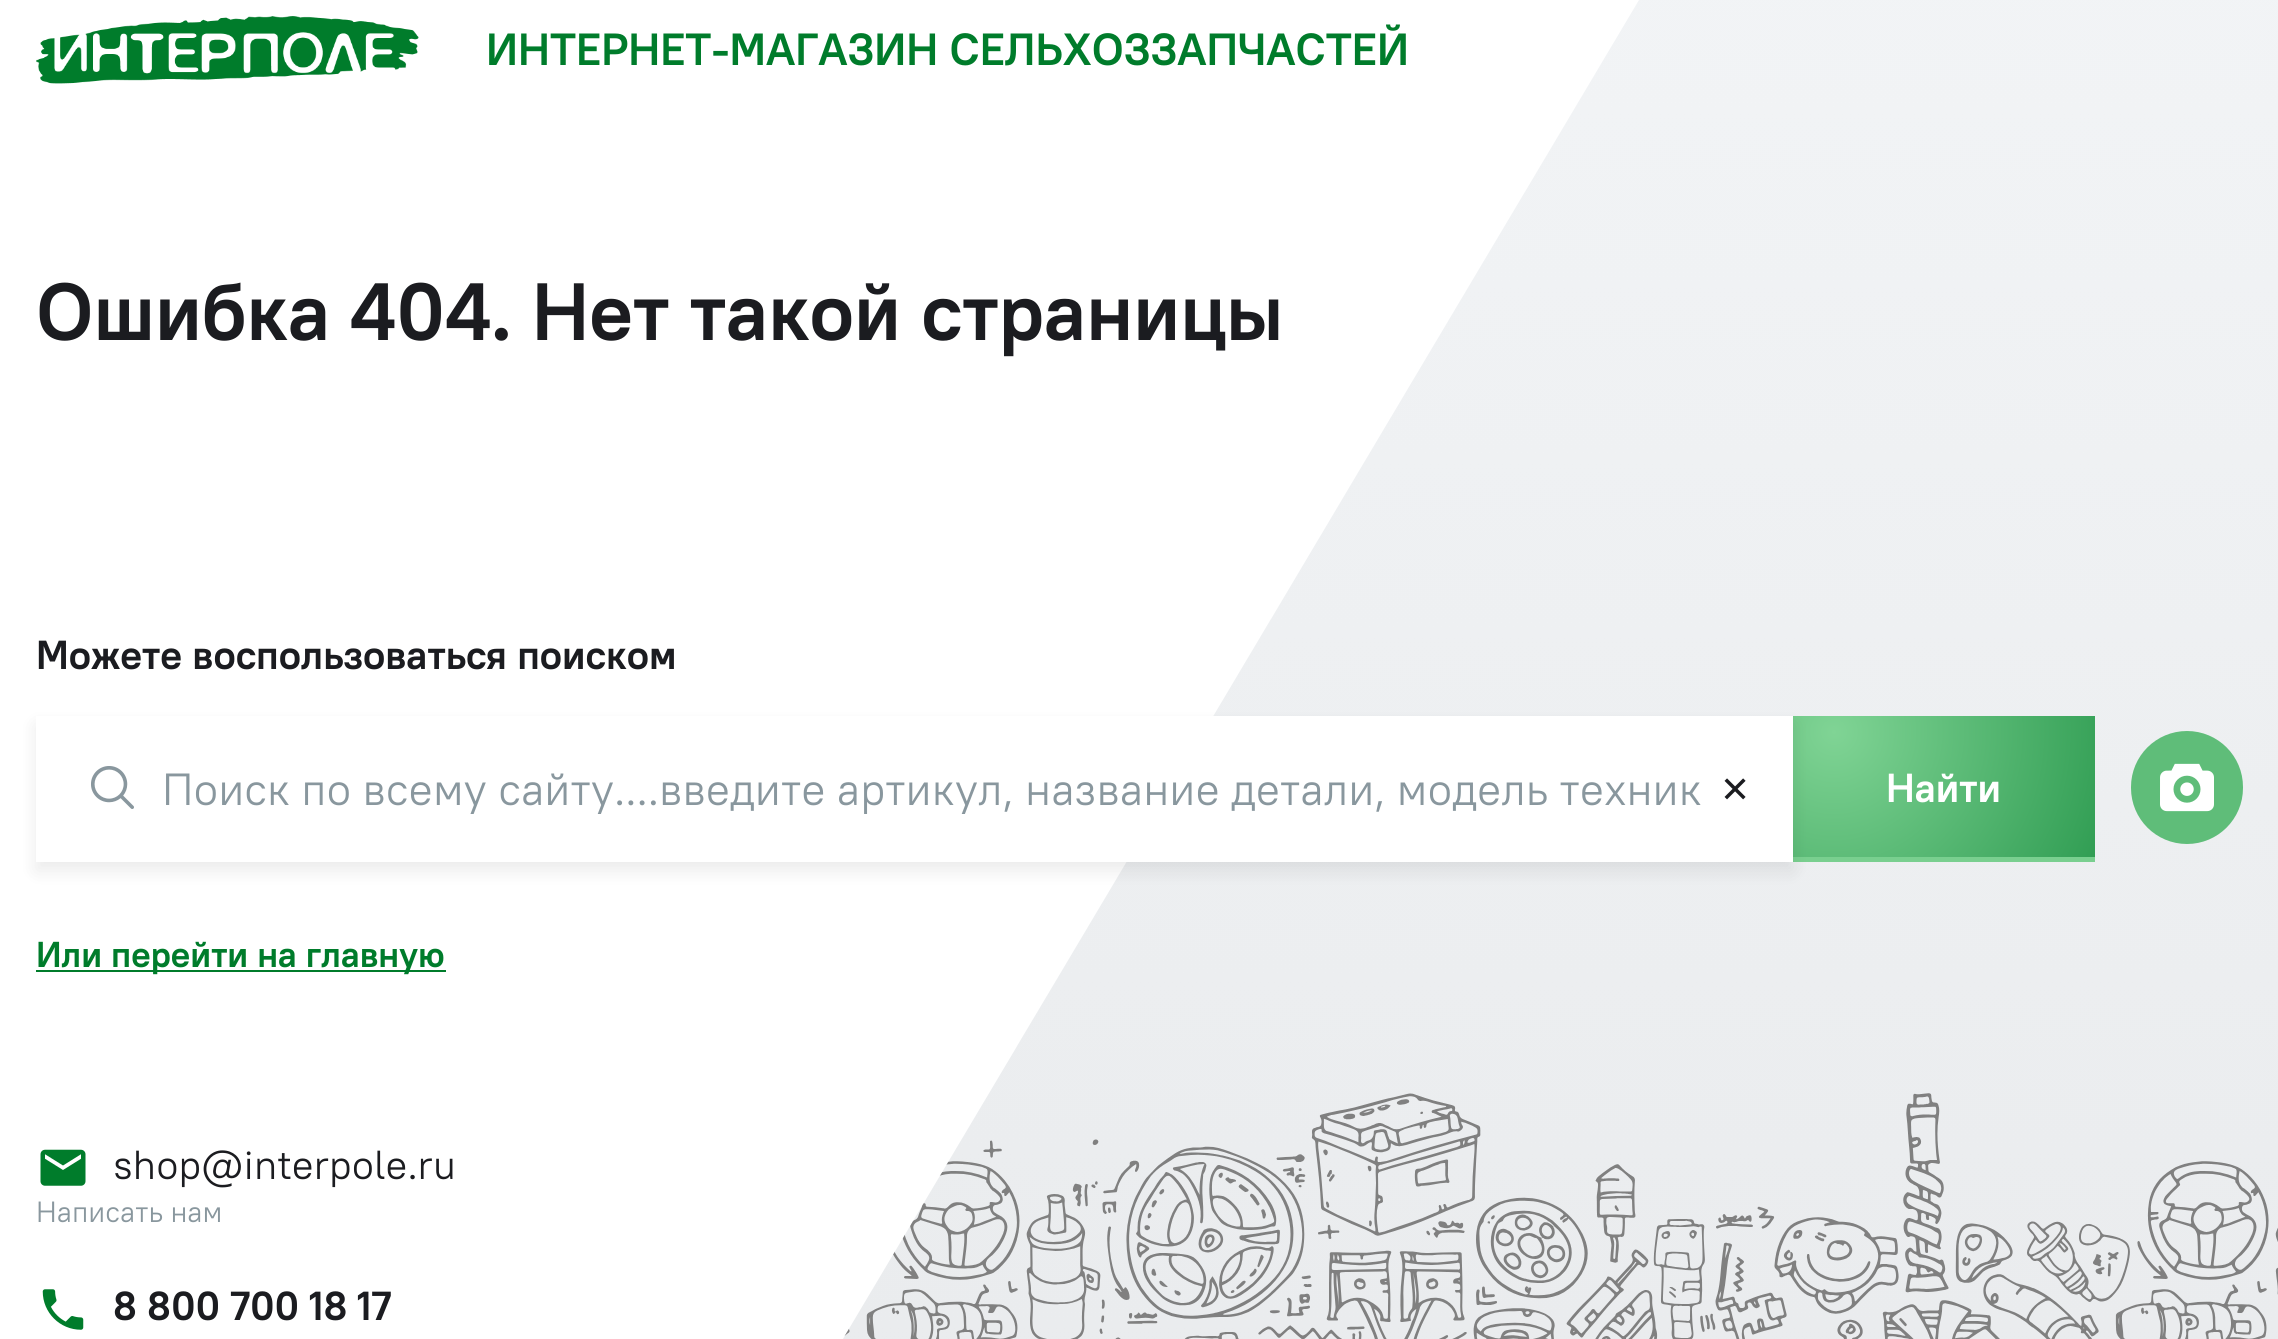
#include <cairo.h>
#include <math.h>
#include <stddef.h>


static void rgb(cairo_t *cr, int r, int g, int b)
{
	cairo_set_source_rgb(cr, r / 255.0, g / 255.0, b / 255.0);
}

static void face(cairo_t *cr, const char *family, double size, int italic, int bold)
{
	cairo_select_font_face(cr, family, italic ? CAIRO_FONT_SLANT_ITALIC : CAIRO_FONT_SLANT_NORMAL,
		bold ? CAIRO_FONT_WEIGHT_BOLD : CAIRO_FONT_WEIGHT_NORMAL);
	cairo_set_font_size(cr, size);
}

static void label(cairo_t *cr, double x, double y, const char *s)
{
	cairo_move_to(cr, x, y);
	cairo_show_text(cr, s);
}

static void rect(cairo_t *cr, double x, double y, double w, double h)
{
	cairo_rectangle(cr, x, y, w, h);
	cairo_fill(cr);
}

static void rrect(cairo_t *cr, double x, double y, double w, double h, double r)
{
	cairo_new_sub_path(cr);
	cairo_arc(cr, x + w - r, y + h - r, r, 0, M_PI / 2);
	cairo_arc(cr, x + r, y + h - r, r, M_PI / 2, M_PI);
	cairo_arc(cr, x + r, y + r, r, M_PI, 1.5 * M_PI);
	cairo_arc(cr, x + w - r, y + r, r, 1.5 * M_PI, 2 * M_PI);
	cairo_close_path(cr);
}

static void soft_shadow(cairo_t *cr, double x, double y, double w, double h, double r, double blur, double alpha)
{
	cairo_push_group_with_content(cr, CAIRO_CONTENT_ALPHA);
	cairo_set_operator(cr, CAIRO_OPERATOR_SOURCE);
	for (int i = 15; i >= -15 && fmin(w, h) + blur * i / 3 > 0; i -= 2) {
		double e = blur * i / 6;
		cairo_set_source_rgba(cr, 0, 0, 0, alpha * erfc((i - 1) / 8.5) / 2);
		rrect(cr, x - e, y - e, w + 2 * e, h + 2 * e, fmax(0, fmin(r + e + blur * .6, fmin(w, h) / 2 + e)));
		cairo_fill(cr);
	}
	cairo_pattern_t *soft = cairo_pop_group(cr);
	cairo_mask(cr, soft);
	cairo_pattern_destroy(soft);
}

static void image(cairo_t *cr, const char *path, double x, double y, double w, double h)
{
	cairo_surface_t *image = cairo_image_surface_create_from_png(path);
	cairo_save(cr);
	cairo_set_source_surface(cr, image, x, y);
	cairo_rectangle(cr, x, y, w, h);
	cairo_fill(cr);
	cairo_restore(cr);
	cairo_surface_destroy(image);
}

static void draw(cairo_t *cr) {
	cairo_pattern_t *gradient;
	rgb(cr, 255, 255, 255);
	cairo_paint(cr);
	image(cr, "image0.png", 843, 0, 1435, 1339);
	image(cr, "image1.png", 36, 16, 383, 68);
	face(cr, "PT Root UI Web", 45, 0, 1);
	rgb(cr, 0, 124, 43);
	label(cr, 486, 65, "ИНТЕРНЕТ-МАГАЗИН СЕЛЬХОЗЗАПЧАСТЕЙ");
	face(cr, "PT Root UI Web", 81, 0, 1);
	rgb(cr, 27, 28, 32);
	label(cr, 36, 340, "Ошибка 404. Нет такой страницы");
	face(cr, "PT Root UI Web", 40.5, 0, 1);
	label(cr, 36, 669, "Можете воспользоваться поиском");
	gradient = cairo_pattern_create_radial(1834, 732, 0, 1834, 732, 469);
	cairo_pattern_add_color_stop_rgba(gradient, 0, 0.502, 0.831, 0.584, 1);
	cairo_pattern_add_color_stop_rgba(gradient, 1, 0, 0.486, 0.169, 1);
	cairo_set_source(cr, gradient);
	cairo_pattern_destroy(gradient);
	rect(cr, 1793, 716, 302, 141);
	rgb(cr, 121, 207, 143);
	rect(cr, 1793, 857, 302, 5);
	rgb(cr, 0, 0, 0);
	soft_shadow(cr, 36, 725, 1757, 146, 0, 9, 0.08);
	rgb(cr, 255, 255, 255);
	rect(cr, 36, 716, 1757, 146);
	image(cr, "image2.png", 91, 766, 43, 43);
	face(cr, "PT Root UI Web", 45, 0, 0);
	rgb(cr, 137, 151, 158);
	label(cr, 162, 805, "Поиск по всему сайту....введите артикул, название детали, модель техник");
	face(cr, "DejaVu Sans", 36, 0, 0);
	rgb(cr, 27, 28, 32);
	label(cr, 1720, 802, "✕");
	face(cr, "PT Root UI Web", 40.5, 0, 1);
	rgb(cr, 255, 255, 255);
	label(cr, 1886, 802, "Найти");
	rgb(cr, 95, 189, 121);
	rrect(cr, 2131, 731, 112, 113, 56);
	cairo_fill(cr);
	image(cr, "image3.png", 2160, 763, 54, 49);
	rgb(cr, 0, 124, 43);
	rect(cr, 36, 970, 410, 2);
	face(cr, "PT Root UI Web", 36, 0, 1);
	label(cr, 36, 967, "Или перейти на главную");
	image(cr, "image4.png", 40, 1149, 46, 37);
	face(cr, "PT Root UI Web", 40.5, 0, 0);
	rgb(cr, 27, 28, 32);
	label(cr, 113, 1179, "shop@interpole.ru");
	face(cr, "PT Root UI Web", 29.25, 0, 0);
	rgb(cr, 137, 151, 158);
	label(cr, 36, 1222, "Написать нам");
	image(cr, "image5.png", 42, 1289, 42, 41);
	face(cr, "PT Root UI Web", 40.5, 0, 1);
	rgb(cr, 27, 28, 32);
	label(cr, 113, 1320, "8 800 700 18 17");
}

int main(void) {
	cairo_surface_t *surface = cairo_image_surface_create(CAIRO_FORMAT_RGB24, 2278, 1339);
	cairo_t *cr = cairo_create(surface);
	cairo_font_options_t *options = cairo_font_options_create();
	cairo_font_options_set_hint_metrics(options, CAIRO_HINT_METRICS_OFF);
	cairo_font_options_set_hint_style(options, CAIRO_HINT_STYLE_NONE);
	cairo_set_font_options(cr, options);
	cairo_set_miter_limit(cr, 4);
	draw(cr);
	cairo_surface_write_to_png(surface, "render.png");
	cairo_font_options_destroy(options);
	cairo_destroy(cr);
	cairo_surface_destroy(surface);
	return 0;
}
